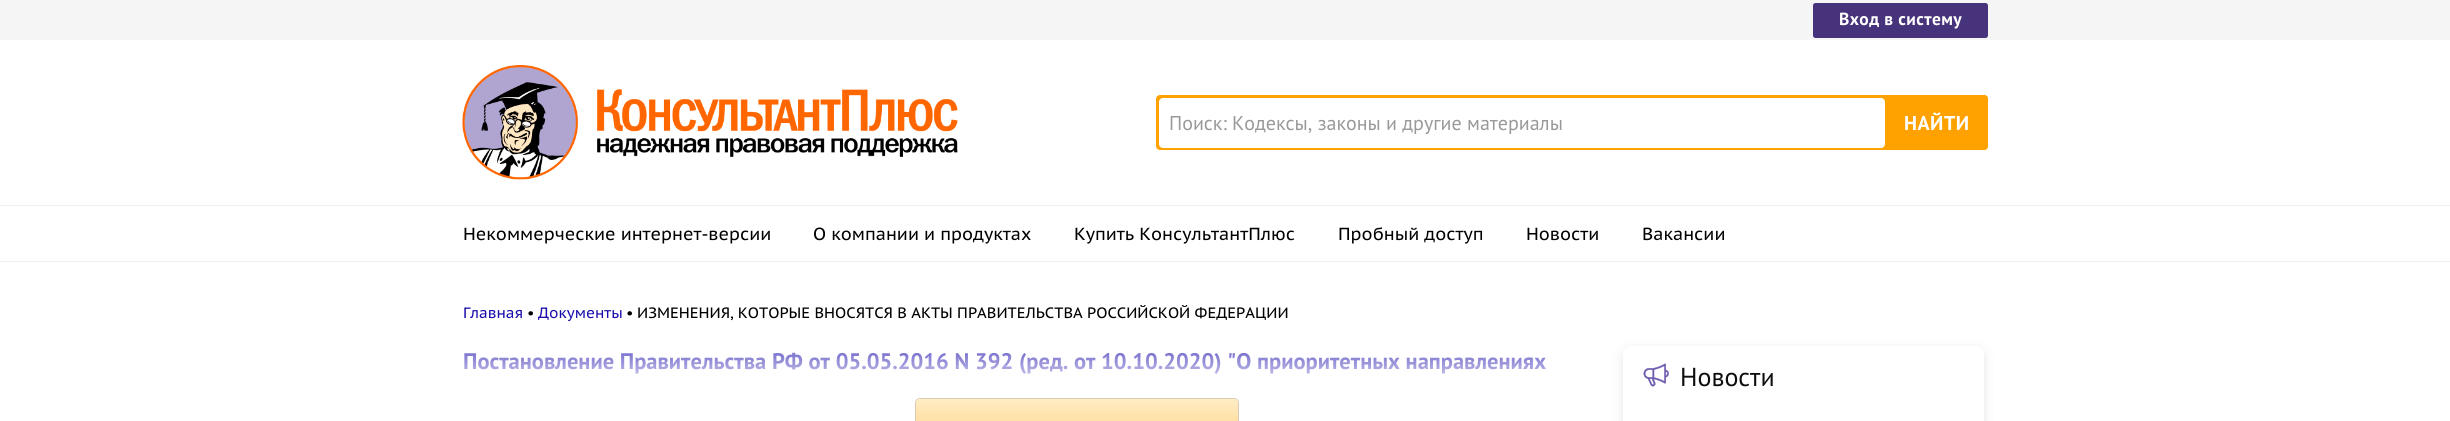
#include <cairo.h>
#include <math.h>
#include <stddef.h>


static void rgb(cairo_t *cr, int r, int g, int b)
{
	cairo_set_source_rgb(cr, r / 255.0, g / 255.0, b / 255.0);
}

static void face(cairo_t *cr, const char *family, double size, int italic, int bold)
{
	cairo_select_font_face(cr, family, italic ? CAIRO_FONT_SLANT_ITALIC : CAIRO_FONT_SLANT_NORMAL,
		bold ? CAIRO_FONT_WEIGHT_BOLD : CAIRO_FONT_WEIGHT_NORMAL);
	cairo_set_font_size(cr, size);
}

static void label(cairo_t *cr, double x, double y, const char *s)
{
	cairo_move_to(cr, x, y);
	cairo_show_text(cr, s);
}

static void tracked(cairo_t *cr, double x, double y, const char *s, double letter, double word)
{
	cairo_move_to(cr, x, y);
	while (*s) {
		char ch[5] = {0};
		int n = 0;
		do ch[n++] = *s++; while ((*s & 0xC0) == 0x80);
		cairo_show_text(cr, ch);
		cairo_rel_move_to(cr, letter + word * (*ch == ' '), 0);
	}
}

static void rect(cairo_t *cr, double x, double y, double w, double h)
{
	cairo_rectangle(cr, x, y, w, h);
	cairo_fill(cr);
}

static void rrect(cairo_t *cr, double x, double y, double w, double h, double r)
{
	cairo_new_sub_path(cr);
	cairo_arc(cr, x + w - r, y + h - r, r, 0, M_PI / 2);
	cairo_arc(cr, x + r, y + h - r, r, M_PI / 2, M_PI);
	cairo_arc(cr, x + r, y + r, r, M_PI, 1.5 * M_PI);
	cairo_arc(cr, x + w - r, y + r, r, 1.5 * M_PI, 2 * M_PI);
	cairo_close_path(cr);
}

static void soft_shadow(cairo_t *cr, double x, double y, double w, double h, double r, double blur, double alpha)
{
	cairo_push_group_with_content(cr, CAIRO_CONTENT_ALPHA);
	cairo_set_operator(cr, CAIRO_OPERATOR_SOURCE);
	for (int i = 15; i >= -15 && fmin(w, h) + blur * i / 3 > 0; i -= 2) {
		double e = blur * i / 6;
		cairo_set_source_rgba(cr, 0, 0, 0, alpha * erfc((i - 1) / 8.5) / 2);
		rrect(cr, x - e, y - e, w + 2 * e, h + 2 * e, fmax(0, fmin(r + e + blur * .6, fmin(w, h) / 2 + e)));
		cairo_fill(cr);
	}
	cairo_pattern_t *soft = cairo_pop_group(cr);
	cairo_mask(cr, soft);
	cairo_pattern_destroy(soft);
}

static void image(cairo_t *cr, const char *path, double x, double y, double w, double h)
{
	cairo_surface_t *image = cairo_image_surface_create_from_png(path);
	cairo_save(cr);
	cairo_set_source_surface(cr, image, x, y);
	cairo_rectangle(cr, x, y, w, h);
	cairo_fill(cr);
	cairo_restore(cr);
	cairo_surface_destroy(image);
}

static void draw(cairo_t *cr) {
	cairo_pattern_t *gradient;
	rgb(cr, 255, 255, 255);
	cairo_paint(cr);
	rgb(cr, 245, 245, 245);
	rect(cr, 0, 0, 2450, 40);
	rgb(cr, 71, 51, 123);
	rrect(cr, 1813, 3, 175, 35, 2.5);
	cairo_fill(cr);
	face(cr, "PT Sans", 17.5, 0, 1);
	rgb(cr, 255, 255, 255);
	tracked(cr, 1839, 25, "Вход в систему", 0.4, 0);
	image(cr, "image0.png", 462, 65, 496, 115);
	rgb(cr, 255, 162, 0);
	rrect(cr, 1156, 95, 832, 55, 4);
	cairo_fill(cr);
	rgb(cr, 255, 255, 255);
	rrect(cr, 1159, 98, 726, 50, 4);
	cairo_fill(cr);
	face(cr, "PT Sans", 20, 0, 0);
	rgb(cr, 153, 153, 153);
	label(cr, 1169, 130, "Поиск: Кодексы, законы и другие материалы");
	rgb(cr, 255, 162, 0);
	rrect(cr, 1885, 95, 103, 55, 4);
	cairo_fill(cr);
	face(cr, "PT Sans", 20, 0, 1);
	rgb(cr, 255, 255, 255);
	tracked(cr, 1904, 130, "НАЙТИ", 0.5, 0);
	rgb(cr, 240, 240, 240);
	rect(cr, 0, 205, 2450, 1);
	rect(cr, 0, 261, 2450, 1);
	face(cr, "PT Sans Caption", 17.5, 0, 0);
	rgb(cr, 0, 0, 0);
	label(cr, 463, 240, "Некоммерческие интернет-версии");
	label(cr, 813, 240, "О компании и продуктах");
	label(cr, 1074, 240, "Купить КонсультантПлюс");
	label(cr, 1338, 240, "Пробный доступ");
	label(cr, 1526, 240, "Новости");
	label(cr, 1642, 240, "Вакансии");
	face(cr, "PT Sans Caption", 15, 0, 0);
	rgb(cr, 26, 13, 171);
	label(cr, 463, 318, "Главная");
	rgb(cr, 0, 0, 0);
	label(cr, 527, 318, "•");
	rgb(cr, 26, 13, 171);
	label(cr, 538, 318, "Документы");
	rgb(cr, 0, 0, 0);
	label(cr, 626, 318, "•");
	label(cr, 637, 318, "ИЗМЕНЕНИЯ, КОТОРЫЕ ВНОСЯТСЯ В АКТЫ ПРАВИТЕЛЬСТВА РОССИЙСКОЙ ФЕДЕРАЦИИ");
	face(cr, "PT Sans", 22.5, 0, 1);
	rgb(cr, 26, 13, 171);
	label(cr, 463, 369, "Постановление Правительства РФ от 05.05.2016 N 392 (ред. от 10.10.2020) \"О приоритетных направлениях");
	gradient = cairo_pattern_create_linear(1025, 321, 1025, 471);
	cairo_pattern_add_color_stop_rgba(gradient, 0, 1, 1, 1, 0);
	cairo_pattern_add_color_stop_rgba(gradient, 0.5, 1, 1, 1, 1);
	cairo_set_source(cr, gradient);
	cairo_pattern_destroy(gradient);
	rect(cr, 463, 352, 1083, 22);
	rrect(cr, 915.5, 398.5, 323, 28, 4.5);
	rgb(cr, 218, 202, 179);
	cairo_set_line_width(cr, 1);
	cairo_stroke(cr);
	gradient = cairo_pattern_create_linear(1077, 399, 1077, 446);
	cairo_pattern_add_color_stop_rgba(gradient, 0, 1, 0.929, 0.769, 1);
	cairo_pattern_add_color_stop_rgba(gradient, 0.97, 1, 0.827, 0.525, 1);
	cairo_set_source(cr, gradient);
	cairo_pattern_destroy(gradient);
	rrect(cr, 916, 399, 322, 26, 4);
	cairo_fill(cr);
	rgb(cr, 40, 39, 42);
	soft_shadow(cr, 1623, 349, 361, 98, 8, 6, 0.12);
	rgb(cr, 255, 255, 255);
	rrect(cr, 1623, 346, 361, 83, 8);
	cairo_fill(cr);
	image(cr, "image1.png", 1643, 363, 26, 24);
	face(cr, "PT Sans", 26, 0, 0);
	rgb(cr, 14, 14, 14);
	label(cr, 1680, 386, "Новости");
}

int main(void) {
	cairo_surface_t *surface = cairo_image_surface_create(CAIRO_FORMAT_RGB24, 2450, 421);
	cairo_t *cr = cairo_create(surface);
	cairo_font_options_t *options = cairo_font_options_create();
	cairo_font_options_set_hint_metrics(options, CAIRO_HINT_METRICS_OFF);
	cairo_font_options_set_hint_style(options, CAIRO_HINT_STYLE_NONE);
	cairo_set_font_options(cr, options);
	cairo_set_miter_limit(cr, 4);
	draw(cr);
	cairo_surface_write_to_png(surface, "render.png");
	cairo_font_options_destroy(options);
	cairo_destroy(cr);
	cairo_surface_destroy(surface);
	return 0;
}
